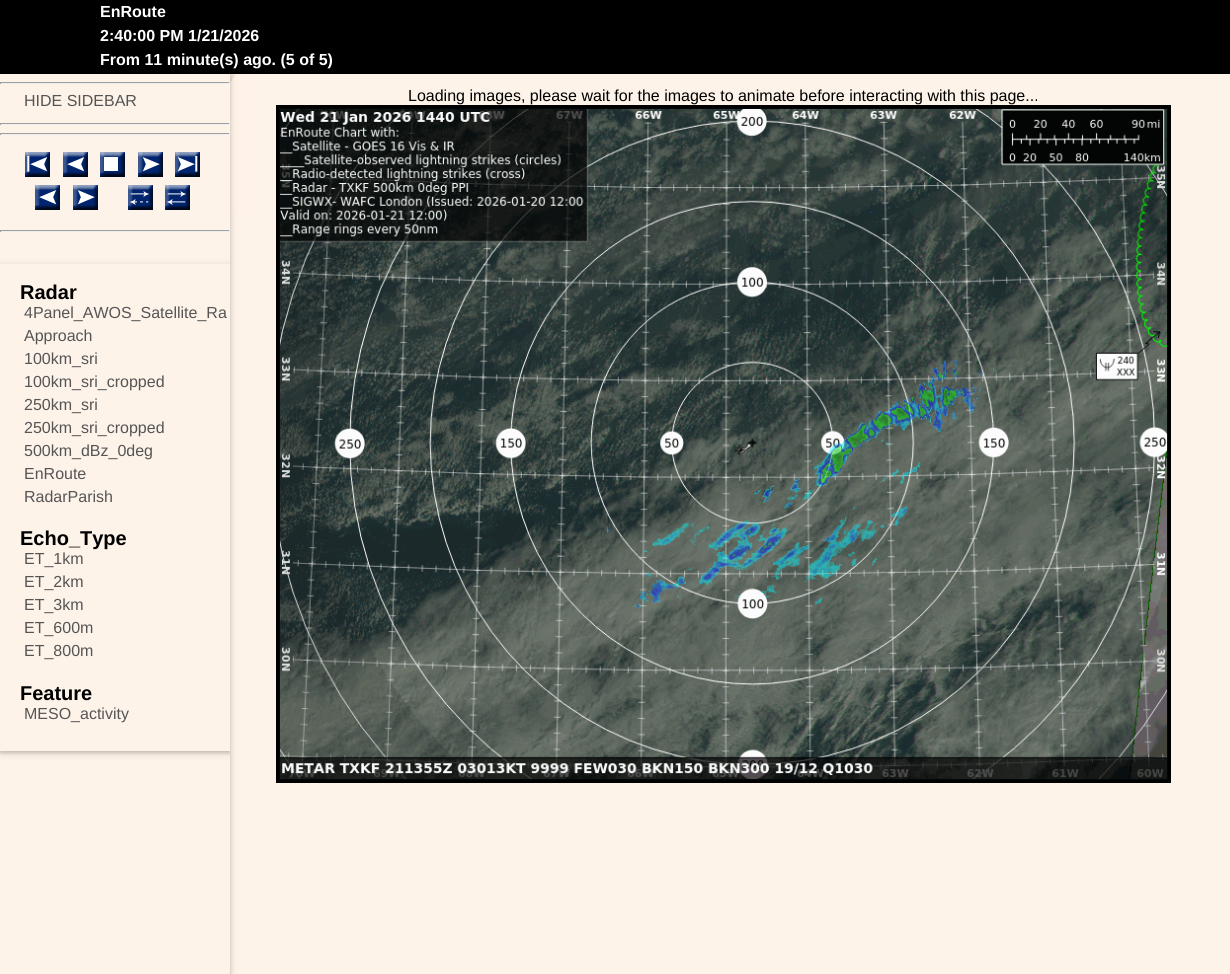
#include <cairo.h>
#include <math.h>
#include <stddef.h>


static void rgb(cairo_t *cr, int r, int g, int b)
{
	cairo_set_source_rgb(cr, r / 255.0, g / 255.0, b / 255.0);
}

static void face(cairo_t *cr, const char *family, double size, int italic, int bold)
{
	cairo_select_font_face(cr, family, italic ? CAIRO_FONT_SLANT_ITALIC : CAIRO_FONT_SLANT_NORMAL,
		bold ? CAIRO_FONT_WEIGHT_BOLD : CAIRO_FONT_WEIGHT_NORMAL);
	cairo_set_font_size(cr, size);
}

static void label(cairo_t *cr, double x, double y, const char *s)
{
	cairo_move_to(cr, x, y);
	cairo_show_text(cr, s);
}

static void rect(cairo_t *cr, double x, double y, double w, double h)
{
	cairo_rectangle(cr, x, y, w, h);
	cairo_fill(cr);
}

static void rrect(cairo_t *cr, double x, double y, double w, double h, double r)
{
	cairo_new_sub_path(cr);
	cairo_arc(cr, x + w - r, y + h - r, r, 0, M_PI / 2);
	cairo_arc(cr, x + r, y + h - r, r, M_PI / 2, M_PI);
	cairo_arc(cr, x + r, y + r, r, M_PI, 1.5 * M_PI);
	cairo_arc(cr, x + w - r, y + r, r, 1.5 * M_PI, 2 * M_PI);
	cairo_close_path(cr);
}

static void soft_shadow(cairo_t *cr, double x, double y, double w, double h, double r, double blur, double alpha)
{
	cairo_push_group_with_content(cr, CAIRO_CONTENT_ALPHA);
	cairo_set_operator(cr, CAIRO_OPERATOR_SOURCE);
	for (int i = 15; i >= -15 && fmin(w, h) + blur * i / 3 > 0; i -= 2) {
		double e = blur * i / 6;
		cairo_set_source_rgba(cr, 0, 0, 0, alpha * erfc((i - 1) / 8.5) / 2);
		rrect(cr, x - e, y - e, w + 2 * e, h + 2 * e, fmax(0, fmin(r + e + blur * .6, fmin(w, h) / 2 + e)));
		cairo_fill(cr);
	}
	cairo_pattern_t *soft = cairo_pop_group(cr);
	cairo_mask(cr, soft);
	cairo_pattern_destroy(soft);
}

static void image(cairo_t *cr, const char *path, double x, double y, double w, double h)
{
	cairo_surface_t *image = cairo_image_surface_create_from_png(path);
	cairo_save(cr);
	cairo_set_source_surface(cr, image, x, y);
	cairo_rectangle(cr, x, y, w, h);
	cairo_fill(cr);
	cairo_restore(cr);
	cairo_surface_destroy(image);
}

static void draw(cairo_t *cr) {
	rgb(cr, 253, 243, 233);
	cairo_paint(cr);
	image(cr, "image0.png", 230, 74, 26, 138);
	rgb(cr, 0, 0, 0);
	soft_shadow(cr, 0, 76, 230, 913, 0, 5, 0.12);
	soft_shadow(cr, 0, 76, 230, 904, 0, 2, 0.16);
	rgb(cr, 0, 0, 0);
	rect(cr, 0, 0, 1230, 74);
	face(cr, "Liberation Sans", 16, 0, 1);
	rgb(cr, 255, 255, 255);
	label(cr, 100, 17, "EnRoute");
	label(cr, 100, 41, "2:40:00 PM 1/21/2026");
	label(cr, 100, 65, "From 11 minute(s) ago. (5 of 5)");
	rgb(cr, 253, 243, 233);
	rect(cr, 0, 74, 230, 900);
	rgb(cr, 159, 159, 159);
	rect(cr, 0, 82, 230, 1);
	rgb(cr, 238, 238, 238);
	rect(cr, 229, 82, 1, 2);
	rect(cr, 0, 83, 230, 1);
	rgb(cr, 159, 159, 159);
	rect(cr, 0, 82, 1, 2);
	face(cr, "Liberation Sans", 16, 0, 0);
	rgb(cr, 85, 85, 85);
	label(cr, 24, 106, "HIDE SIDEBAR");
	rgb(cr, 159, 159, 159);
	rect(cr, 0, 123, 230, 1);
	rgb(cr, 238, 238, 238);
	rect(cr, 229, 123, 1, 2);
	rect(cr, 0, 124, 230, 1);
	rgb(cr, 159, 159, 159);
	rect(cr, 0, 123, 1, 2);
	rect(cr, 0, 133, 230, 1);
	rgb(cr, 238, 238, 238);
	rect(cr, 229, 133, 1, 2);
	rect(cr, 0, 134, 230, 1);
	rgb(cr, 159, 159, 159);
	rect(cr, 0, 133, 1, 2);
	image(cr, "image1.png", 25, 152, 25, 25);
	image(cr, "image2.png", 63, 152, 25, 25);
	image(cr, "image3.png", 100, 152, 25, 25);
	image(cr, "image4.png", 138, 152, 25, 25);
	image(cr, "image5.png", 175, 152, 25, 25);
	image(cr, "image2.png", 35, 185, 25, 25);
	image(cr, "image4.png", 73, 185, 25, 25);
	image(cr, "image6.png", 128, 185, 25, 25);
	image(cr, "image7.png", 165, 185, 25, 25);
	rect(cr, 0, 230, 230, 1);
	rgb(cr, 238, 238, 238);
	rect(cr, 229, 230, 1, 2);
	rect(cr, 0, 231, 230, 1);
	rgb(cr, 159, 159, 159);
	rect(cr, 0, 230, 1, 2);
	cairo_save(cr);
	cairo_rectangle(cr, 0, 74, 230, 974);
	cairo_clip(cr);
	cairo_set_fill_rule(cr, CAIRO_FILL_RULE_EVEN_ODD);
	cairo_new_path(cr);
	cairo_move_to(cr, 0, 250);
	cairo_line_to(cr, 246, 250);
	cairo_line_to(cr, 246, 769);
	cairo_line_to(cr, 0, 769);
	cairo_close_path(cr);
	cairo_move_to(cr, 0, 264);
	cairo_line_to(cr, 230, 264);
	cairo_line_to(cr, 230, 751);
	cairo_line_to(cr, 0, 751);
	cairo_close_path(cr);
	cairo_clip(cr);
	rgb(cr, 0, 0, 0);
	soft_shadow(cr, 0, 266, 230, 487, 0, 5, 0.12);
	cairo_restore(cr);
	cairo_save(cr);
	cairo_rectangle(cr, 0, 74, 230, 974);
	cairo_clip(cr);
	cairo_rectangle(cr, 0, 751, 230, 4);
	cairo_clip(cr);
	rgb(cr, 0, 0, 0);
	soft_shadow(cr, 0, 266, 230, 487, 0, 2, 0.16);
	cairo_restore(cr);
	face(cr, "Liberation Sans", 20, 0, 1);
	rgb(cr, 0, 0, 0);
	label(cr, 20, 299, "Radar");
	face(cr, "Liberation Sans", 16, 0, 0);
	rgb(cr, 85, 85, 85);
	label(cr, 24, 318, "4Panel_AWOS_Satellite_Ra");
	label(cr, 24, 341, "Approach");
	label(cr, 24, 364, "100km_sri");
	label(cr, 24, 387, "100km_sri_cropped");
	label(cr, 24, 410, "250km_sri");
	label(cr, 24, 433, "250km_sri_cropped");
	label(cr, 24, 456, "500km_dBz_0deg");
	label(cr, 24, 479, "EnRoute");
	label(cr, 24, 502, "RadarParish");
	face(cr, "Liberation Sans", 20, 0, 1);
	rgb(cr, 0, 0, 0);
	label(cr, 20, 545, "Echo_Type");
	face(cr, "Liberation Sans", 16, 0, 0);
	rgb(cr, 85, 85, 85);
	label(cr, 24, 564, "ET_1km");
	label(cr, 24, 587, "ET_2km");
	label(cr, 24, 610, "ET_3km");
	label(cr, 24, 633, "ET_600m");
	label(cr, 24, 656, "ET_800m");
	face(cr, "Liberation Sans", 20, 0, 1);
	rgb(cr, 0, 0, 0);
	label(cr, 20, 700, "Feature");
	face(cr, "Liberation Sans", 16, 0, 0);
	rgb(cr, 85, 85, 85);
	label(cr, 24, 719, "MESO_activity");
	rgb(cr, 0, 0, 0);
	label(cr, 408, 101, "Loading images, please wait for the images to animate before interacting with this page...");
	cairo_rectangle(cr, 277.5, 106.5, 892, 675);
	cairo_set_line_width(cr, 3);
	cairo_stroke(cr);
	image(cr, "image8.png", 279, 108, 889, 672);
}

int main(void) {
	cairo_surface_t *surface = cairo_image_surface_create(CAIRO_FORMAT_RGB24, 1230, 974);
	cairo_t *cr = cairo_create(surface);
	cairo_font_options_t *options = cairo_font_options_create();
	cairo_font_options_set_hint_metrics(options, CAIRO_HINT_METRICS_OFF);
	cairo_font_options_set_hint_style(options, CAIRO_HINT_STYLE_NONE);
	cairo_set_font_options(cr, options);
	cairo_set_miter_limit(cr, 4);
	draw(cr);
	cairo_surface_write_to_png(surface, "render.png");
	cairo_font_options_destroy(options);
	cairo_destroy(cr);
	cairo_surface_destroy(surface);
	return 0;
}
